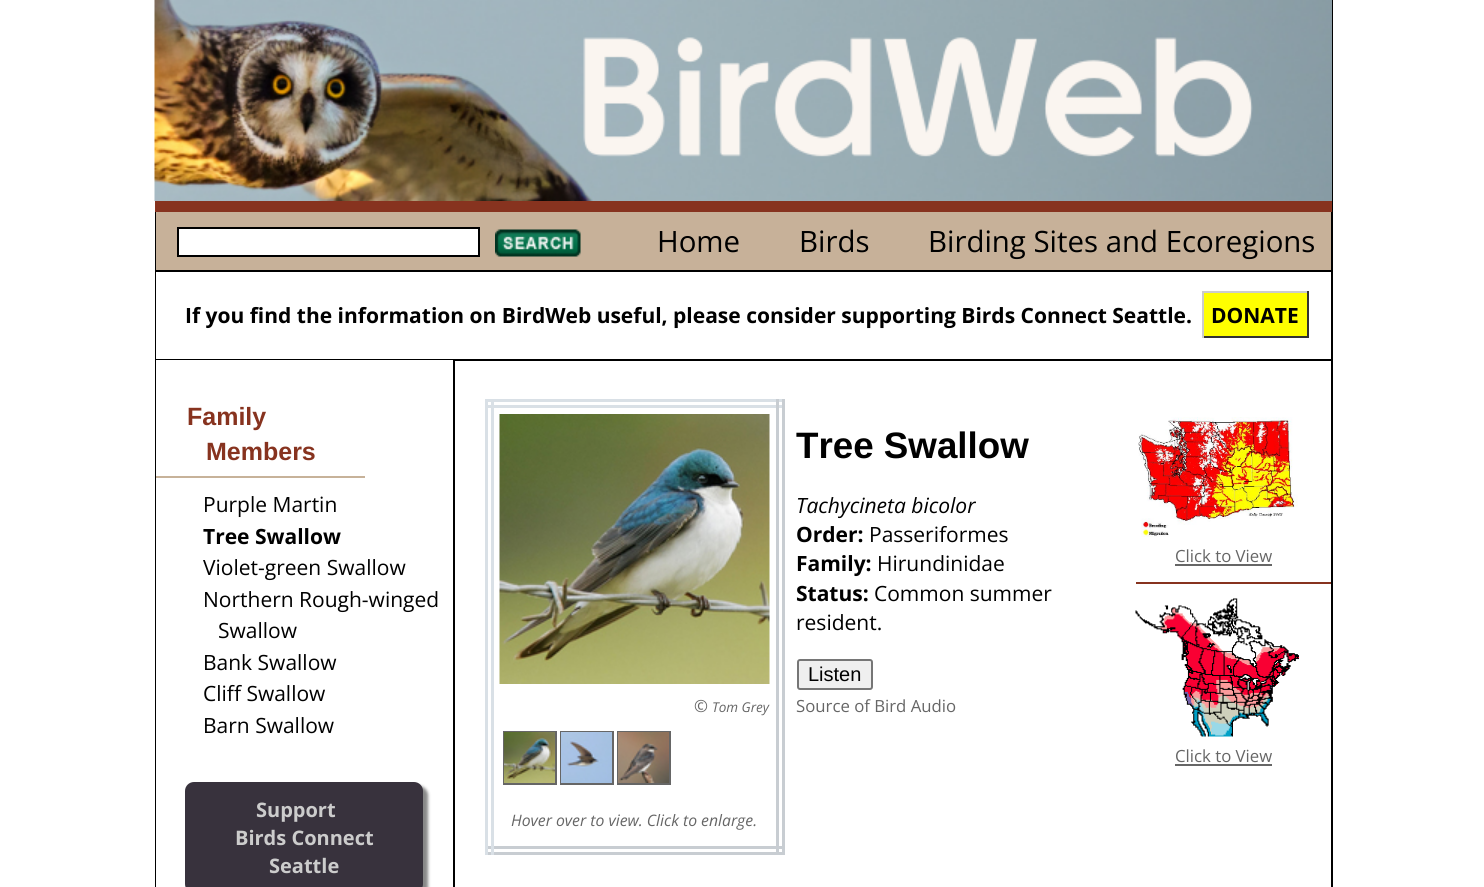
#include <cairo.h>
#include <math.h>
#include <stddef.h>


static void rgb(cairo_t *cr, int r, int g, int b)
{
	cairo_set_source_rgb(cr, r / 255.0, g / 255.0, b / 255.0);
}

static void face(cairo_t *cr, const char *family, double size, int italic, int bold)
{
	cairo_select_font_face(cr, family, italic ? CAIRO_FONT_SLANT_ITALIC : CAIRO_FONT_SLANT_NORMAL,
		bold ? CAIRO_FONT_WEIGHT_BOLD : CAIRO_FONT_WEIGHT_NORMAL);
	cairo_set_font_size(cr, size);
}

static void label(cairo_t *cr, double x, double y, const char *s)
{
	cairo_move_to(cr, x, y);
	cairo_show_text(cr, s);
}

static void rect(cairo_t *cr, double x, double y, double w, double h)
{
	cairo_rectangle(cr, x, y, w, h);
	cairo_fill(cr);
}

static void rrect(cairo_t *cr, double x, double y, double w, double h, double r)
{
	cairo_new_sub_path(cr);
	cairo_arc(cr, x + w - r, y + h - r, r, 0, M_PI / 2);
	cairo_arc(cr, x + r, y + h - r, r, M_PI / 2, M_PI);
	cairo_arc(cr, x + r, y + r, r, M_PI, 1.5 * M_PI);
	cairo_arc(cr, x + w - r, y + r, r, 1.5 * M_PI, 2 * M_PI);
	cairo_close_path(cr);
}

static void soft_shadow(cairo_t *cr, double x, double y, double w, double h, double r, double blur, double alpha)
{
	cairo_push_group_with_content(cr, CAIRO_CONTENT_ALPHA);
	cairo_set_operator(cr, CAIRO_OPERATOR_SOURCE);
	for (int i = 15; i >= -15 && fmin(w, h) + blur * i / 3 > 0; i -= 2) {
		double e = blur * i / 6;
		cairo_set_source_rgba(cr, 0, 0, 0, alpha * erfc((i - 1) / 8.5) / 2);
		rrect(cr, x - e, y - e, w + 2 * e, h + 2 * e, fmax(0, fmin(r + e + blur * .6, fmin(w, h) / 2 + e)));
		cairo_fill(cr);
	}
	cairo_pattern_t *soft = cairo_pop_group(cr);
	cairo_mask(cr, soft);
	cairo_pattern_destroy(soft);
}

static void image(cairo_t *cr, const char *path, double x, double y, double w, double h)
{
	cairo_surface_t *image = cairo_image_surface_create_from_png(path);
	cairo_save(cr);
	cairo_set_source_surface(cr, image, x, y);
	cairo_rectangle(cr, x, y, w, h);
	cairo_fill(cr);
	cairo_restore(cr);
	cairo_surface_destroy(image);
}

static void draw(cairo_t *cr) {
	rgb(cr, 255, 255, 255);
	cairo_paint(cr);
	rgb(cr, 0, 0, 0);
	rect(cr, 1331, 0, 2, 887);
	rgb(cr, 135, 51, 31);
	rect(cr, 155, 201, 1177, 11);
	image(cr, "image0.png", 154, 0, 1178, 201);
	rgb(cr, 0, 0, 0);
	rect(cr, 155, 212, 1, 675);
	rgb(cr, 199, 177, 153);
	rect(cr, 156, 212, 1175, 58);
	rgb(cr, 255, 255, 255);
	cairo_rectangle(cr, 178, 228, 301, 28);
	cairo_fill_preserve(cr);
	rgb(cr, 0, 0, 0);
	cairo_stroke(cr);
	image(cr, "image1.png", 495, 229, 86, 28);
	face(cr, "Open Sans", 29.4, 0, 0);
	label(cr, 657, 252, "Home");
	label(cr, 799, 252, "Birds");
	label(cr, 928, 252, "Birding Sites and Ecoregions");
	rect(cr, 156, 270, 1175, 2);
	rect(cr, 156, 359, 1175, 2);
	face(cr, "Open Sans", 21, 0, 1);
	label(cr, 185, 323, "If you find the information on BirdWeb useful, please consider supporting Birds Connect Seattle.");
	rgb(cr, 255, 255, 0);
	rect(cr, 1204, 293, 103, 43);
	rgb(cr, 0, 0, 0);
	label(cr, 1211, 323, "DONATE");
	rgb(cr, 204, 204, 204);
	rect(cr, 1202, 291, 106, 2);
	rgb(cr, 51, 51, 51);
	rect(cr, 1307, 291, 2, 47);
	rect(cr, 1202, 336, 106, 2);
	rgb(cr, 204, 204, 204);
	rect(cr, 1202, 291, 2, 47);
	rgb(cr, 255, 255, 255);
	rect(cr, 156, 360, 297, 1);
	rgb(cr, 199, 178, 153);
	rect(cr, 156, 476, 209, 2);
	face(cr, "Liberation Sans", 25, 0, 1);
	rgb(cr, 135, 51, 31);
	label(cr, 187, 425, "Family");
	label(cr, 206, 460, "Members");
	face(cr, "Open Sans", 21, 0, 0);
	rgb(cr, 0, 0, 0);
	label(cr, 203, 512, "Purple Martin");
	face(cr, "Open Sans", 21, 0, 1);
	label(cr, 203, 544, "Tree Swallow");
	face(cr, "Open Sans", 21, 0, 0);
	label(cr, 203, 575, "Violet-green Swallow");
	label(cr, 203, 607, "Northern Rough-winged");
	label(cr, 218, 638, "Swallow");
	label(cr, 203, 670, "Bank Swallow");
	label(cr, 203, 701, "Cliff Swallow");
	label(cr, 203, 733, "Barn Swallow");
	rgb(cr, 136, 136, 136);
	soft_shadow(cr, 189, 786, 239, 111, 9, 1.5, 1);
	rgb(cr, 56, 50, 61);
	rrect(cr, 185, 782, 238, 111, 9);
	cairo_fill(cr);
	face(cr, "Open Sans", 20, 0, 1);
	rgb(cr, 204, 204, 204);
	label(cr, 256, 817, "Support");
	label(cr, 235, 845, "Birds Connect");
	label(cr, 269, 873, "Seattle");
	rgb(cr, 0, 0, 0);
	rect(cr, 453, 360, 2, 527);
	rgb(cr, 217, 224, 230);
	rect(cr, 485, 399, 300, 3);
	rect(cr, 485, 405, 300, 3);
	rgb(cr, 200, 205, 210);
	rect(cr, 776, 399, 3, 456);
	rect(cr, 782, 399, 3, 456);
	rect(cr, 485, 846, 300, 3);
	rect(cr, 485, 852, 300, 3);
	rgb(cr, 217, 224, 230);
	rect(cr, 485, 399, 3, 456);
	rect(cr, 491, 399, 3, 456);
	image(cr, "image2.png", 499, 414, 271, 270);
	face(cr, "Open Sans", 16.75, 1, 0);
	rgb(cr, 102, 102, 102);
	label(cr, 694, 712, "©");
	face(cr, "Open Sans", 13.5, 1, 0);
	label(cr, 712, 712, "Tom Grey");
	cairo_rectangle(cr, 504, 732, 52, 52);
	cairo_stroke(cr);
	cairo_rectangle(cr, 561, 732, 52, 52);
	cairo_stroke(cr);
	cairo_rectangle(cr, 618, 732, 52, 52);
	cairo_stroke(cr);
	image(cr, "image3.png", 504, 732, 51, 51);
	image(cr, "image4.png", 561, 732, 51, 51);
	image(cr, "image5.png", 618, 732, 51, 51);
	face(cr, "Open Sans", 15.75, 1, 0);
	label(cr, 511, 826, "Hover over to view. Click to enlarge.");
	face(cr, "Liberation Sans", 36.75, 0, 1);
	rgb(cr, 0, 0, 0);
	label(cr, 796, 458, "Tree Swallow");
	face(cr, "Open Sans", 21, 1, 0);
	label(cr, 796, 513, "Tachycineta bicolor");
	face(cr, "Open Sans", 21, 0, 1);
	label(cr, 796, 542, "Order:");
	face(cr, "Open Sans", 21, 0, 0);
	label(cr, 869, 542, "Passeriformes");
	face(cr, "Open Sans", 21, 0, 1);
	label(cr, 796, 571, "Family:");
	face(cr, "Open Sans", 21, 0, 0);
	label(cr, 877, 571, "Hirundinidae");
	face(cr, "Open Sans", 21, 0, 1);
	label(cr, 796, 601, "Status:");
	face(cr, "Open Sans", 21, 0, 0);
	label(cr, 874, 601, "Common summer");
	label(cr, 796, 630, "resident.");
	rgb(cr, 239, 239, 239);
	rrect(cr, 798, 660, 74, 29, 2);
	cairo_fill_preserve(cr);
	rgb(cr, 118, 118, 118);
	cairo_stroke(cr);
	face(cr, "Liberation Sans", 20, 0, 0);
	rgb(cr, 0, 0, 0);
	label(cr, 808, 681, "Listen");
	face(cr, "Open Sans", 16.75, 0, 0);
	rgb(cr, 102, 102, 102);
	label(cr, 796, 712, "Source of Bird Audio");
	image(cr, "image6.png", 1138, 417, 160, 120);
	label(cr, 1175, 562, "Click to View");
	rect(cr, 1175, 564, 97, 2);
	rgb(cr, 135, 51, 31);
	rect(cr, 1136, 582, 195, 2);
	image(cr, "image7.png", 1135, 598, 164, 139);
	rgb(cr, 102, 102, 102);
	label(cr, 1175, 762, "Click to View");
	rect(cr, 1175, 764, 97, 2);
}

int main(void) {
	cairo_surface_t *surface = cairo_image_surface_create(CAIRO_FORMAT_RGB24, 1484, 887);
	cairo_t *cr = cairo_create(surface);
	cairo_font_options_t *options = cairo_font_options_create();
	cairo_font_options_set_hint_metrics(options, CAIRO_HINT_METRICS_OFF);
	cairo_font_options_set_hint_style(options, CAIRO_HINT_STYLE_NONE);
	cairo_set_font_options(cr, options);
	cairo_set_miter_limit(cr, 4);
	draw(cr);
	cairo_surface_write_to_png(surface, "render.png");
	cairo_font_options_destroy(options);
	cairo_destroy(cr);
	cairo_surface_destroy(surface);
	return 0;
}
